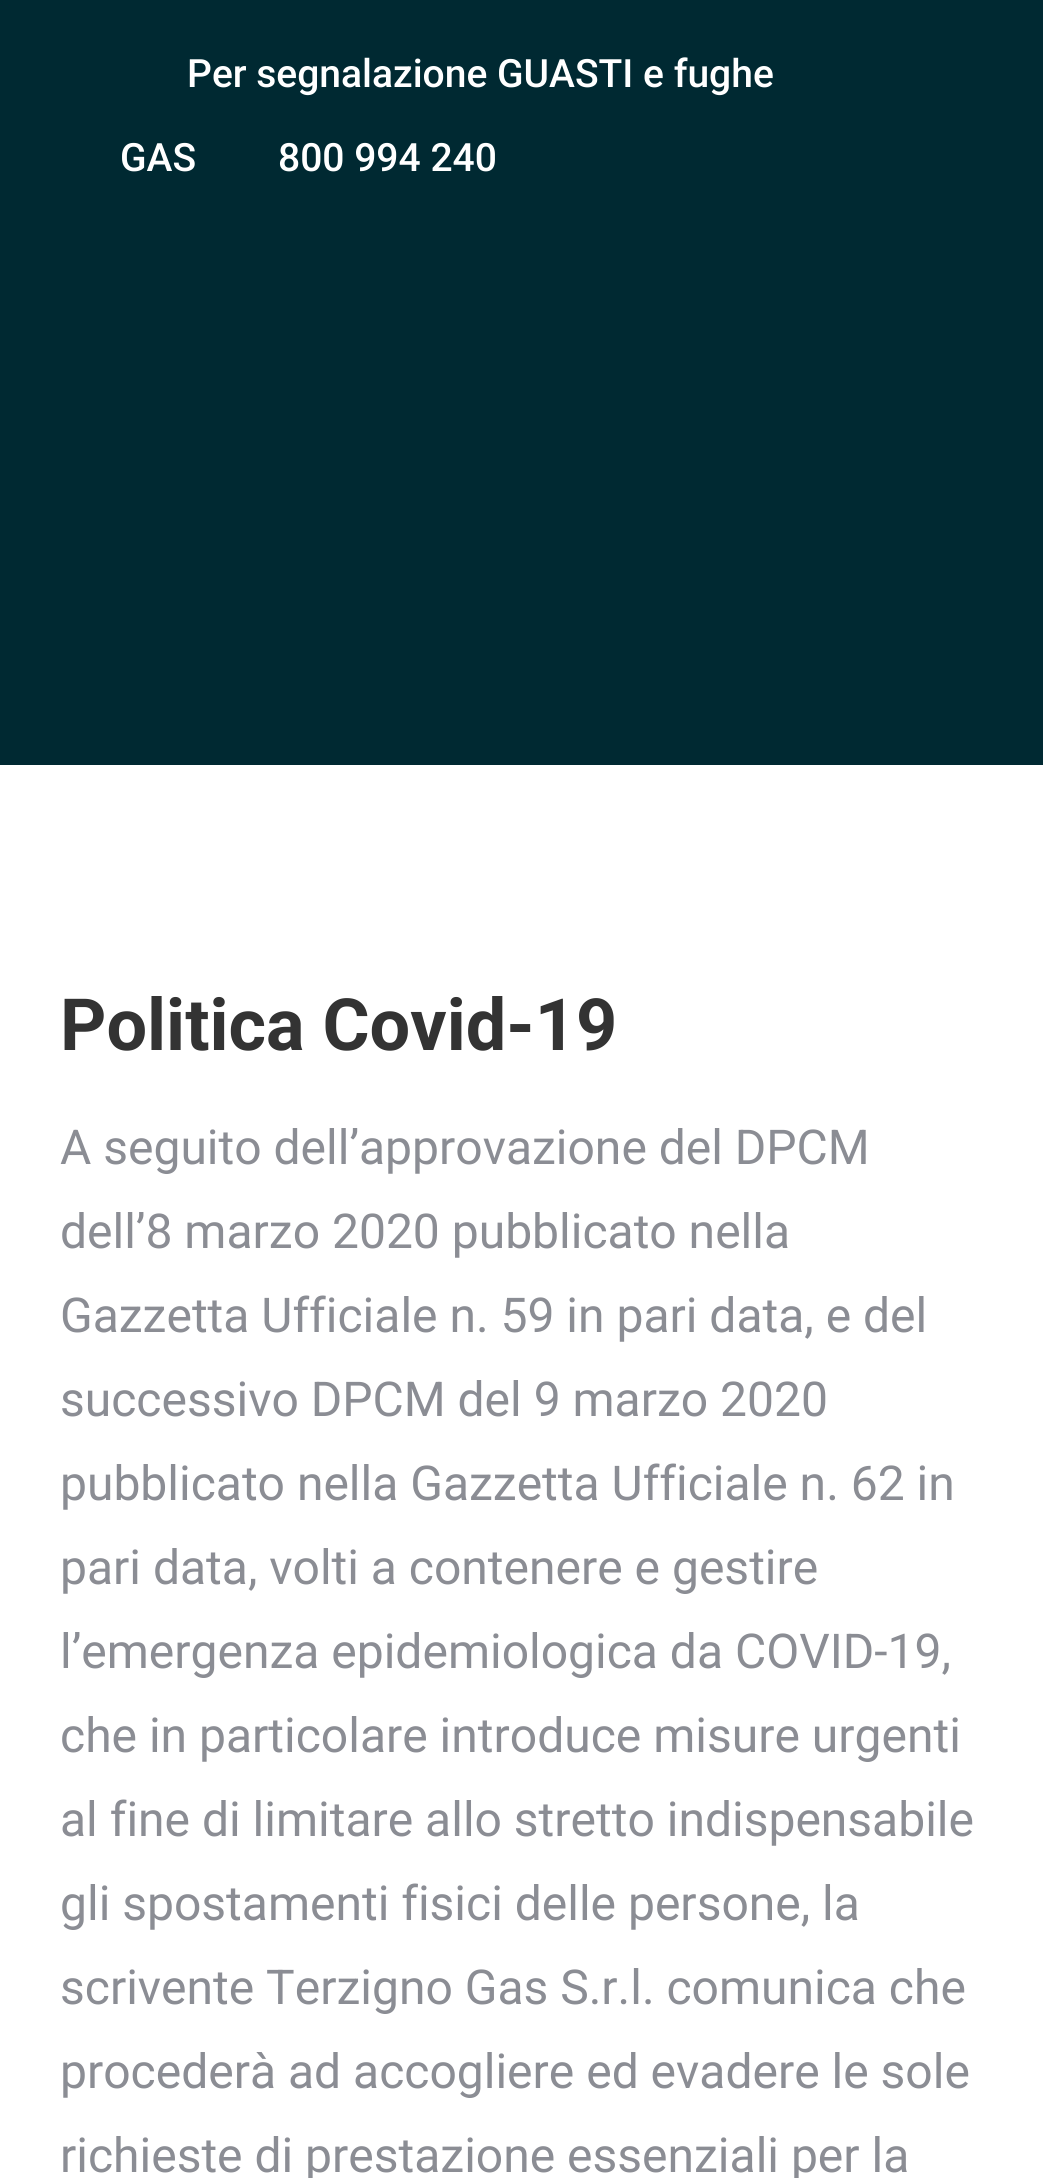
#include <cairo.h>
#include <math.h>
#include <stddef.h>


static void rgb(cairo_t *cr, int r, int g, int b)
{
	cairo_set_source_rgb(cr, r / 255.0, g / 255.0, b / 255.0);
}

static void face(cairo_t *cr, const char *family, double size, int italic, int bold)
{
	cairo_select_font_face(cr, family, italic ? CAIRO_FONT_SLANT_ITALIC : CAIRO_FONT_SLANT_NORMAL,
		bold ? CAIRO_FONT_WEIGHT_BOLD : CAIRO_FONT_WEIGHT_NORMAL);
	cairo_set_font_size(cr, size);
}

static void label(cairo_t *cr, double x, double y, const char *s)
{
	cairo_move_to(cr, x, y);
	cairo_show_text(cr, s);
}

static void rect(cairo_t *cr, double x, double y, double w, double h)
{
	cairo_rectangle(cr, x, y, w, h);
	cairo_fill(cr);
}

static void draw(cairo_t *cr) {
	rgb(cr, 255, 255, 255);
	cairo_paint(cr);
	rgb(cr, 0, 41, 50);
	rect(cr, 0, 0, 1043, 765);
	face(cr, "Roboto Medium", 39, 0, 0);
	rgb(cr, 255, 255, 255);
	label(cr, 187, 87, "Per segnalazione GUASTI e fughe");
	label(cr, 120, 171, "GAS");
	label(cr, 278, 171, "800 994 240");
	face(cr, "Roboto", 72, 0, 1);
	rgb(cr, 51, 51, 51);
	label(cr, 60, 1050, "Politica Covid-19");
	face(cr, "Roboto", 48, 0, 0);
	rgb(cr, 139, 141, 148);
	label(cr, 60, 1164, "A seguito dell’approvazione del DPCM");
	label(cr, 60, 1248, "dell’8 marzo 2020 pubblicato nella");
	label(cr, 60, 1332, "Gazzetta Ufficiale n. 59 in pari data, e del");
	label(cr, 60, 1416, "successivo DPCM del 9 marzo 2020");
	label(cr, 60, 1500, "pubblicato nella Gazzetta Ufficiale n. 62 in");
	label(cr, 60, 1584, "pari data, volti a contenere e gestire");
	label(cr, 60, 1668, "l’emergenza epidemiologica da COVID-19,");
	label(cr, 60, 1752, "che in particolare introduce misure urgenti");
	label(cr, 60, 1836, "al fine di limitare allo stretto indispensabile");
	label(cr, 60, 1920, "gli spostamenti fisici delle persone, la");
	label(cr, 60, 2004, "scrivente Terzigno Gas S.r.l. comunica che");
	label(cr, 60, 2088, "procederà ad accogliere ed evadere le sole");
	label(cr, 60, 2172, "richieste di prestazione essenziali per la");
}

int main(void) {
	cairo_surface_t *surface = cairo_image_surface_create(CAIRO_FORMAT_RGB24, 1043, 2178);
	cairo_t *cr = cairo_create(surface);
	cairo_font_options_t *options = cairo_font_options_create();
	cairo_font_options_set_hint_metrics(options, CAIRO_HINT_METRICS_OFF);
	cairo_font_options_set_hint_style(options, CAIRO_HINT_STYLE_NONE);
	cairo_set_font_options(cr, options);
	cairo_set_miter_limit(cr, 4);
	draw(cr);
	cairo_surface_write_to_png(surface, "render.png");
	cairo_font_options_destroy(options);
	cairo_destroy(cr);
	cairo_surface_destroy(surface);
	return 0;
}
